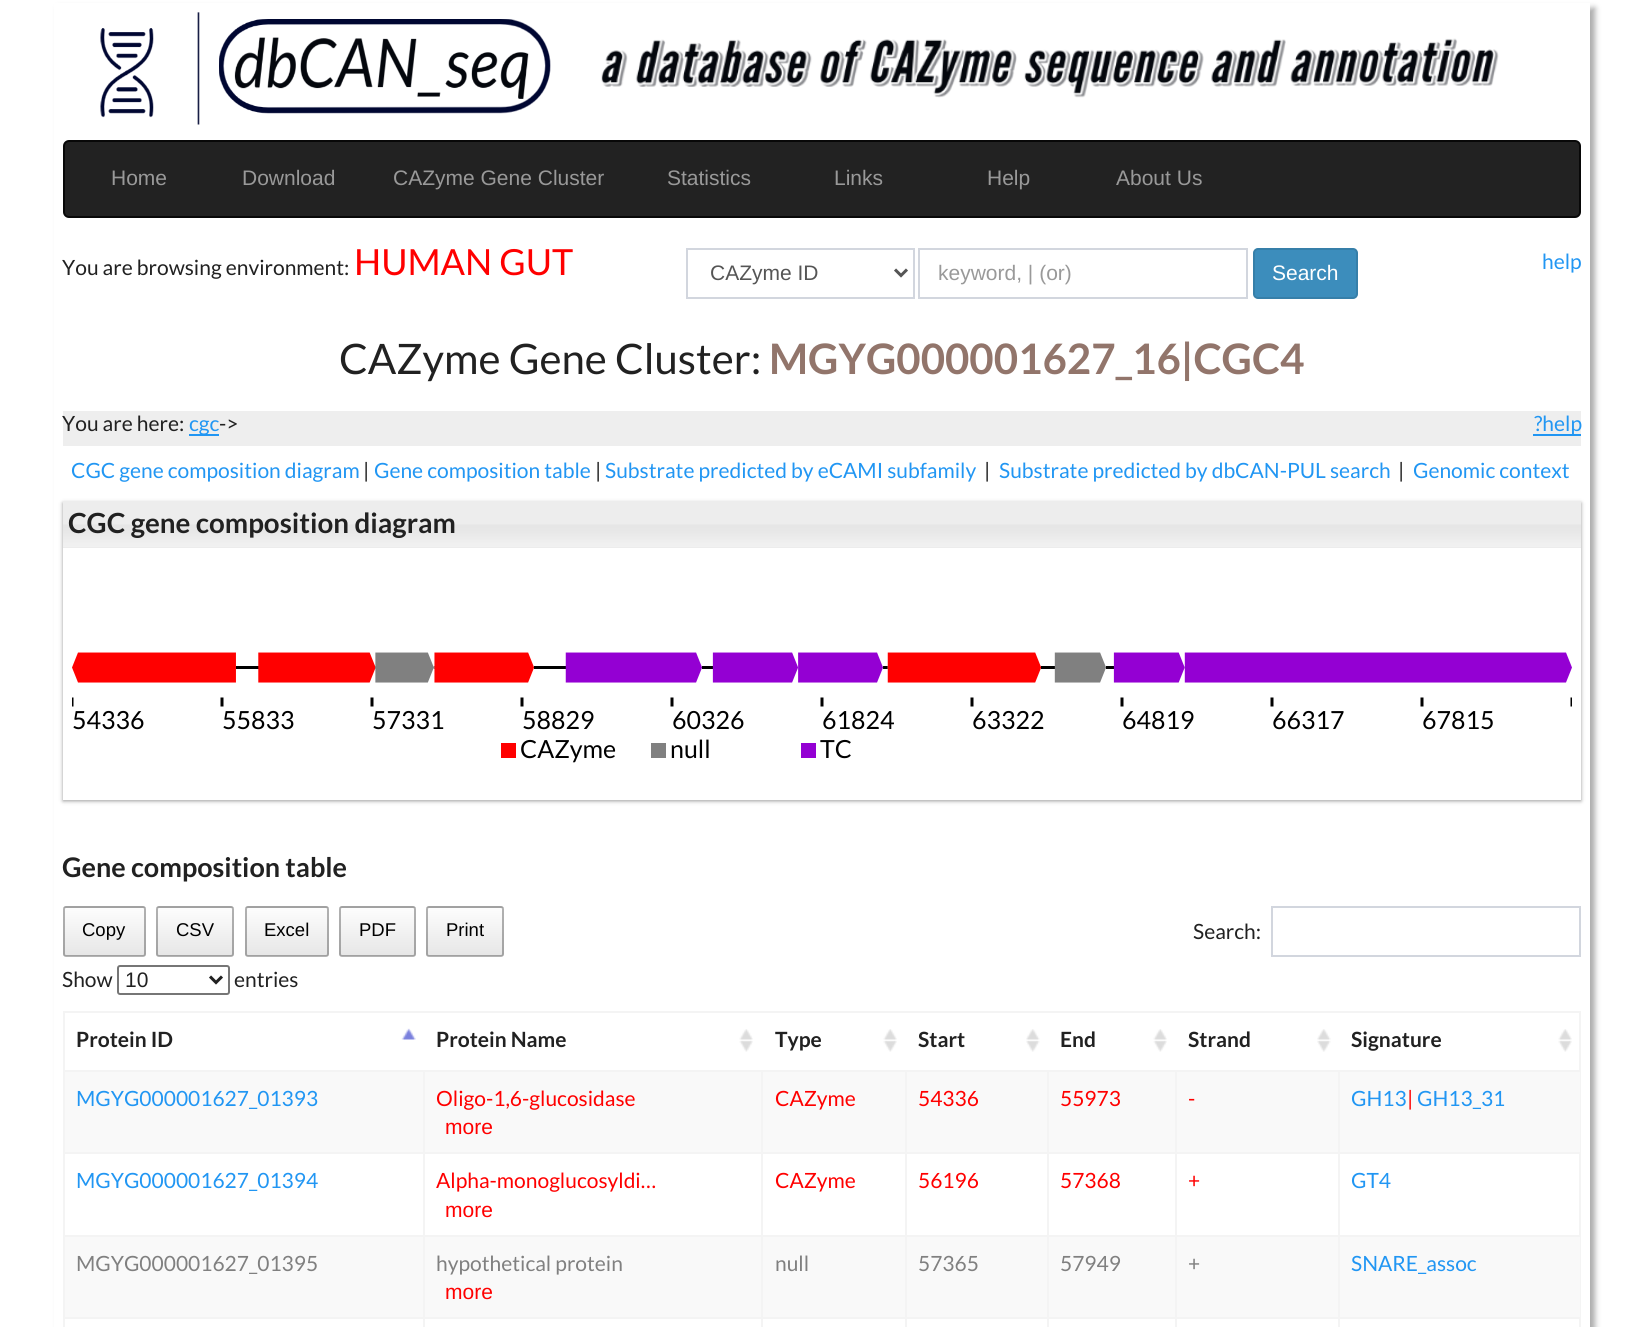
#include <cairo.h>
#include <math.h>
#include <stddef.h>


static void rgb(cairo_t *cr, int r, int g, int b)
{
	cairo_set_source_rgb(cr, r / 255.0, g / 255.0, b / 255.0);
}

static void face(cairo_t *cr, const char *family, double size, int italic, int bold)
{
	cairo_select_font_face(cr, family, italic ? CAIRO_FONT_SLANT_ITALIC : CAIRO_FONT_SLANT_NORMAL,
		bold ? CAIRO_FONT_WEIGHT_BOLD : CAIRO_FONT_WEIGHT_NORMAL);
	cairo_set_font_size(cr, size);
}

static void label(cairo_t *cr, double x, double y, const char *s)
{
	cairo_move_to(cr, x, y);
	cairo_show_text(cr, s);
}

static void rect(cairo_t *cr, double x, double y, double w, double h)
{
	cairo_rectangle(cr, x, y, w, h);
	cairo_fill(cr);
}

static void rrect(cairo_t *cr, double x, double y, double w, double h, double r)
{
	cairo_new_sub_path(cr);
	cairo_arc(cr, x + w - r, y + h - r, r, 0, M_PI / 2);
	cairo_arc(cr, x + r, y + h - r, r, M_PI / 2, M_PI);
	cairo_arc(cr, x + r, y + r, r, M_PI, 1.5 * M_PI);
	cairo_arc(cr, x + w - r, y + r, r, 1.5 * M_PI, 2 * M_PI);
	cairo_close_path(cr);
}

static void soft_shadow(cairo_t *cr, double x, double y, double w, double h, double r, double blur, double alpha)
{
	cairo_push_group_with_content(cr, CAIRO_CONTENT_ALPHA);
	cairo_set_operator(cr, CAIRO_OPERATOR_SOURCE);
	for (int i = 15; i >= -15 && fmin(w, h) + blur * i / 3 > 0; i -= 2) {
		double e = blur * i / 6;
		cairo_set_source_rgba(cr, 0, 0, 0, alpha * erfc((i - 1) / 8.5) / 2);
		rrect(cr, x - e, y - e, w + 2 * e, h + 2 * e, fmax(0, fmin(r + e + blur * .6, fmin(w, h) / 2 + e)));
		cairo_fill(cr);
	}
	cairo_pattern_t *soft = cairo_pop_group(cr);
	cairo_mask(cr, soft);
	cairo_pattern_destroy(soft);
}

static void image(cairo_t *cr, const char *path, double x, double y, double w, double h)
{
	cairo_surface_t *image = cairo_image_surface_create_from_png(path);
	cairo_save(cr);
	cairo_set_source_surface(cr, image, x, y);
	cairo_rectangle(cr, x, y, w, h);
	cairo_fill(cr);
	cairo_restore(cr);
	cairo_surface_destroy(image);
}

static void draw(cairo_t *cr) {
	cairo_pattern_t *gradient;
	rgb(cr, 255, 255, 255);
	cairo_paint(cr);
	cairo_save(cr);
	cairo_set_fill_rule(cr, CAIRO_FILL_RULE_EVEN_ODD);
	cairo_new_path(cr);
	cairo_move_to(cr, 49, 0);
	cairo_line_to(cr, 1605, 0);
	cairo_line_to(cr, 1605, 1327);
	cairo_line_to(cr, 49, 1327);
	cairo_close_path(cr);
	cairo_move_to(cr, 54, 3);
	cairo_line_to(cr, 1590, 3);
	cairo_line_to(cr, 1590, 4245);
	cairo_line_to(cr, 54, 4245);
	cairo_close_path(cr);
	cairo_clip(cr);
	rgb(cr, 170, 170, 170);
	soft_shadow(cr, 59, 8, 1536, 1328, 0, 3, 1);
	cairo_restore(cr);
	image(cr, "image0.png", 100, 12, 451, 113);
	image(cr, "image1.png", 601, 38, 898, 60);
	rgb(cr, 34, 34, 34);
	rrect(cr, 64, 141, 1516, 76, 5);
	cairo_fill_preserve(cr);
	rgb(cr, 8, 8, 8);
	cairo_stroke(cr);
	face(cr, "Liberation Sans", 21, 0, 0);
	rgb(cr, 153, 153, 153);
	label(cr, 111, 185, "Home");
	label(cr, 242, 185, "Download");
	label(cr, 393, 185, "CAZyme Gene Cluster");
	label(cr, 667, 185, "Statistics");
	label(cr, 834, 185, "Links");
	label(cr, 987, 185, "Help");
	label(cr, 1116, 185, "About Us");
	face(cr, "Lato", 21, 0, 0);
	rgb(cr, 33, 33, 33);
	label(cr, 62, 275, "You are browsing environment:");
	face(cr, "Lato", 36, 0, 0);
	rgb(cr, 255, 0, 0);
	label(cr, 354, 275, "HUMAN GUT");
	cairo_rectangle(cr, 687, 249, 227, 49);
	rgb(cr, 210, 214, 222);
	cairo_stroke(cr);
	cairo_new_path(cr);
	cairo_move_to(cr, 895, 269.5);
	cairo_line_to(cr, 901, 275.5);
	cairo_line_to(cr, 907, 269.5);
	rgb(cr, 85, 85, 85);
	cairo_set_line_width(cr, 3);
	cairo_stroke(cr);
	face(cr, "Liberation Sans", 21, 0, 0);
	label(cr, 710, 280, "CAZyme ID");
	cairo_rectangle(cr, 919, 249, 328, 49);
	rgb(cr, 210, 214, 222);
	cairo_set_line_width(cr, 2);
	cairo_stroke(cr);
	rgb(cr, 153, 153, 153);
	label(cr, 938, 280, "keyword, | (or)");
	rgb(cr, 60, 141, 188);
	rrect(cr, 1254, 249, 103, 49, 4);
	cairo_fill_preserve(cr);
	rgb(cr, 54, 127, 169);
	cairo_stroke(cr);
	rgb(cr, 255, 255, 255);
	label(cr, 1272, 280, "Search");
	face(cr, "Lato", 21, 0, 0);
	rgb(cr, 33, 150, 243);
	label(cr, 1542, 269, "help");
	face(cr, "Lato", 42, 0, 0);
	rgb(cr, 33, 33, 33);
	label(cr, 339, 374, "CAZyme Gene Cluster:");
	face(cr, "Lato", 42, 0, 1);
	rgb(cr, 146, 117, 107);
	label(cr, 769, 374, "MGYG000001627_16|CGC4");
	rgb(cr, 238, 238, 238);
	rect(cr, 63, 411, 1518, 35);
	face(cr, "Lato", 21, 0, 0);
	rgb(cr, 33, 33, 33);
	label(cr, 62, 431, "You are here:");
	rgb(cr, 33, 150, 243);
	rect(cr, 189, 434, 30, 2);
	label(cr, 189, 431, "cgc");
	rgb(cr, 33, 33, 33);
	label(cr, 219, 431, "->");
	rgb(cr, 33, 150, 243);
	rect(cr, 1533, 434, 48, 2);
	label(cr, 1534, 431, "?help");
	label(cr, 71, 478, "CGC gene composition diagram");
	rgb(cr, 33, 33, 33);
	label(cr, 363, 478, "|");
	rgb(cr, 33, 150, 243);
	label(cr, 374, 478, "Gene composition table");
	rgb(cr, 33, 33, 33);
	label(cr, 595, 478, "|");
	rgb(cr, 33, 150, 243);
	label(cr, 605, 478, "Substrate predicted by eCAMI subfamily");
	rgb(cr, 33, 33, 33);
	label(cr, 984, 478, "|");
	rgb(cr, 33, 150, 243);
	label(cr, 999, 478, "Substrate predicted by dbCAN-PUL search");
	rgb(cr, 33, 33, 33);
	label(cr, 1398, 478, "|");
	rgb(cr, 33, 150, 243);
	label(cr, 1413, 478, "Genomic context");
	cairo_save(cr);
	cairo_set_fill_rule(cr, CAIRO_FILL_RULE_EVEN_ODD);
	cairo_new_path(cr);
	cairo_move_to(cr, 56, 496);
	cairo_line_to(cr, 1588, 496);
	cairo_line_to(cr, 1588, 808);
	cairo_line_to(cr, 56, 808);
	cairo_close_path(cr);
	cairo_move_to(cr, 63, 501);
	cairo_line_to(cr, 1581, 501);
	cairo_line_to(cr, 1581, 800);
	cairo_line_to(cr, 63, 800);
	cairo_close_path(cr);
	cairo_clip(cr);
	rgb(cr, 0, 0, 0);
	soft_shadow(cr, 63, 503, 1518, 298, 0, 2, 0.4);
	cairo_restore(cr);
	rgb(cr, 230, 230, 230);
	rect(cr, 63, 547, 1518, 1);
	image(cr, "image2.png", 63, 501, 1518, 47);
	face(cr, "Lato", 27.75, 0, 1);
	rgb(cr, 33, 33, 33);
	label(cr, 68, 533, "CGC gene composition diagram");
	image(cr, "image3.png", 72, 652, 1500, 106);
	face(cr, "Lato", 25, 0, 0);
	rgb(cr, 0, 0, 0);
	label(cr, 72, 729, "54336");
	label(cr, 222, 729, "55833");
	label(cr, 372, 729, "57331");
	label(cr, 522, 729, "58829");
	label(cr, 672, 729, "60326");
	label(cr, 822, 729, "61824");
	label(cr, 972, 729, "63322");
	label(cr, 1122, 729, "64819");
	label(cr, 1272, 729, "66317");
	label(cr, 1422, 729, "67815");
	label(cr, 520, 758, "CAZyme");
	label(cr, 670, 758, "null");
	label(cr, 820, 758, "TC");
	face(cr, "Lato", 27, 0, 1);
	rgb(cr, 33, 33, 33);
	label(cr, 62, 877, "Gene composition table");
	cairo_save(cr);
	rrect(cr, 63, 906, 83, 51, 3);
	cairo_clip(cr);
	gradient = cairo_pattern_create_linear(104, 860, 104, 908);
	cairo_pattern_add_color_stop_rgba(gradient, 0, 0.992, 0.992, 0.992, 1);
	cairo_pattern_add_color_stop_rgba(gradient, 1, 0.902, 0.902, 0.902, 1);
	cairo_set_source(cr, gradient);
	cairo_pattern_destroy(gradient);
	rect(cr, 63, 906, 83, 2);
	gradient = cairo_pattern_create_linear(104, 908, 104, 956);
	cairo_pattern_add_color_stop_rgba(gradient, 0, 0.992, 0.992, 0.992, 1);
	cairo_pattern_add_color_stop_rgba(gradient, 1, 0.902, 0.902, 0.902, 1);
	cairo_set_source(cr, gradient);
	cairo_pattern_destroy(gradient);
	rect(cr, 63, 908, 83, 48);
	cairo_restore(cr);
	rrect(cr, 64, 907, 81, 49, 2);
	cairo_set_source_rgba(cr, 0, 0, 0, 0.3);
	cairo_stroke(cr);
	face(cr, "Liberation Sans", 18.5, 0, 0);
	rgb(cr, 0, 0, 0);
	label(cr, 82, 936, "Copy");
	cairo_save(cr);
	rrect(cr, 156, 906, 78, 51, 3);
	cairo_clip(cr);
	gradient = cairo_pattern_create_linear(195, 860, 195, 908);
	cairo_pattern_add_color_stop_rgba(gradient, 0, 0.992, 0.992, 0.992, 1);
	cairo_pattern_add_color_stop_rgba(gradient, 1, 0.902, 0.902, 0.902, 1);
	cairo_set_source(cr, gradient);
	cairo_pattern_destroy(gradient);
	rect(cr, 156, 906, 78, 2);
	gradient = cairo_pattern_create_linear(195, 908, 195, 956);
	cairo_pattern_add_color_stop_rgba(gradient, 0, 0.992, 0.992, 0.992, 1);
	cairo_pattern_add_color_stop_rgba(gradient, 1, 0.902, 0.902, 0.902, 1);
	cairo_set_source(cr, gradient);
	cairo_pattern_destroy(gradient);
	rect(cr, 156, 908, 78, 48);
	cairo_restore(cr);
	rrect(cr, 157, 907, 76, 49, 2);
	cairo_set_source_rgba(cr, 0, 0, 0, 0.3);
	cairo_stroke(cr);
	rgb(cr, 0, 0, 0);
	label(cr, 176, 936, "CSV");
	cairo_save(cr);
	rrect(cr, 245, 906, 84, 51, 3);
	cairo_clip(cr);
	gradient = cairo_pattern_create_linear(287, 860, 287, 908);
	cairo_pattern_add_color_stop_rgba(gradient, 0, 0.992, 0.992, 0.992, 1);
	cairo_pattern_add_color_stop_rgba(gradient, 1, 0.902, 0.902, 0.902, 1);
	cairo_set_source(cr, gradient);
	cairo_pattern_destroy(gradient);
	rect(cr, 245, 906, 84, 2);
	gradient = cairo_pattern_create_linear(287, 908, 287, 956);
	cairo_pattern_add_color_stop_rgba(gradient, 0, 0.992, 0.992, 0.992, 1);
	cairo_pattern_add_color_stop_rgba(gradient, 1, 0.902, 0.902, 0.902, 1);
	cairo_set_source(cr, gradient);
	cairo_pattern_destroy(gradient);
	rect(cr, 245, 908, 84, 48);
	cairo_restore(cr);
	rrect(cr, 246, 907, 82, 49, 2);
	cairo_set_source_rgba(cr, 0, 0, 0, 0.3);
	cairo_stroke(cr);
	rgb(cr, 0, 0, 0);
	label(cr, 264, 936, "Excel");
	cairo_save(cr);
	rrect(cr, 339, 906, 77, 51, 3);
	cairo_clip(cr);
	gradient = cairo_pattern_create_linear(377, 860, 377, 908);
	cairo_pattern_add_color_stop_rgba(gradient, 0, 0.992, 0.992, 0.992, 1);
	cairo_pattern_add_color_stop_rgba(gradient, 1, 0.902, 0.902, 0.902, 1);
	cairo_set_source(cr, gradient);
	cairo_pattern_destroy(gradient);
	rect(cr, 339, 906, 77, 2);
	gradient = cairo_pattern_create_linear(377, 908, 377, 956);
	cairo_pattern_add_color_stop_rgba(gradient, 0, 0.992, 0.992, 0.992, 1);
	cairo_pattern_add_color_stop_rgba(gradient, 1, 0.902, 0.902, 0.902, 1);
	cairo_set_source(cr, gradient);
	cairo_pattern_destroy(gradient);
	rect(cr, 339, 908, 77, 48);
	cairo_restore(cr);
	rrect(cr, 340, 907, 75, 49, 2);
	cairo_set_source_rgba(cr, 0, 0, 0, 0.3);
	cairo_stroke(cr);
	rgb(cr, 0, 0, 0);
	label(cr, 359, 936, "PDF");
	cairo_save(cr);
	rrect(cr, 426, 906, 78, 51, 3);
	cairo_clip(cr);
	gradient = cairo_pattern_create_linear(465, 860, 465, 908);
	cairo_pattern_add_color_stop_rgba(gradient, 0, 0.992, 0.992, 0.992, 1);
	cairo_pattern_add_color_stop_rgba(gradient, 1, 0.902, 0.902, 0.902, 1);
	cairo_set_source(cr, gradient);
	cairo_pattern_destroy(gradient);
	rect(cr, 426, 906, 78, 2);
	gradient = cairo_pattern_create_linear(465, 908, 465, 956);
	cairo_pattern_add_color_stop_rgba(gradient, 0, 0.992, 0.992, 0.992, 1);
	cairo_pattern_add_color_stop_rgba(gradient, 1, 0.902, 0.902, 0.902, 1);
	cairo_set_source(cr, gradient);
	cairo_pattern_destroy(gradient);
	rect(cr, 426, 908, 78, 48);
	cairo_restore(cr);
	rrect(cr, 427, 907, 76, 49, 2);
	cairo_set_source_rgba(cr, 0, 0, 0, 0.3);
	cairo_stroke(cr);
	rgb(cr, 0, 0, 0);
	label(cr, 446, 936, "Print");
	face(cr, "Lato", 21, 0, 0);
	rgb(cr, 33, 33, 33);
	label(cr, 1193, 939, "Search:");
	cairo_rectangle(cr, 1272, 907, 308, 49);
	rgb(cr, 210, 214, 222);
	cairo_stroke(cr);
	rgb(cr, 33, 33, 33);
	label(cr, 62, 987, "Show");
	rrect(cr, 118, 966, 111, 28, 2);
	rgb(cr, 118, 118, 118);
	cairo_stroke(cr);
	cairo_new_path(cr);
	cairo_move_to(cr, 210, 976.5);
	cairo_line_to(cr, 216, 982.5);
	cairo_line_to(cr, 222, 976.5);
	rgb(cr, 33, 33, 33);
	cairo_set_line_width(cr, 3);
	cairo_stroke(cr);
	face(cr, "Liberation Sans", 21, 0, 0);
	label(cr, 125, 987, "10");
	face(cr, "Lato", 21, 0, 0);
	label(cr, 234, 987, "entries");
	cairo_rectangle(cr, 64, 1012, 1516, 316);
	rgb(cr, 244, 244, 244);
	cairo_set_line_width(cr, 2);
	cairo_stroke(cr);
	image(cr, "image4.png", 401, 1028, 15, 12);
	face(cr, "Lato", 21, 0, 1);
	rgb(cr, 33, 33, 33);
	label(cr, 76, 1047, "Protein ID");
	image(cr, "image5.png", 739, 1029, 14, 23);
	label(cr, 436, 1047, "Protein Name");
	image(cr, "image6.png", 883, 1029, 14, 23);
	label(cr, 775, 1047, "Type");
	image(cr, "image7.png", 1026, 1029, 14, 23);
	label(cr, 918, 1047, "Start");
	image(cr, "image5.png", 1153, 1029, 14, 23);
	label(cr, 1060, 1047, "End");
	image(cr, "image8.png", 1317, 1029, 14, 23);
	label(cr, 1188, 1047, "Strand");
	image(cr, "image6.png", 1558, 1029, 14, 23);
	label(cr, 1351, 1047, "Signature");
	rgb(cr, 249, 249, 249);
	rect(cr, 65, 1072, 1515, 80);
	rgb(cr, 244, 244, 244);
	rect(cr, 65, 1070, 697, 2);
	rect(cr, 423, 1070, 2, 82);
	face(cr, "Lato", 21, 0, 0);
	rgb(cr, 33, 150, 243);
	label(cr, 76, 1106, "MGYG000001627_01393");
	rgb(cr, 244, 244, 244);
	rect(cr, 761, 1070, 2, 82);
	rgb(cr, 255, 0, 0);
	label(cr, 436, 1106, "Oligo-1,6-glucosidase");
	face(cr, "Liberation Sans", 21, 0, 0);
	label(cr, 445, 1134, "more");
	rgb(cr, 244, 244, 244);
	rect(cr, 762, 1070, 144, 2);
	rect(cr, 905, 1070, 2, 82);
	face(cr, "Lato", 21, 0, 0);
	rgb(cr, 255, 0, 0);
	label(cr, 775, 1106, "CAZyme");
	rgb(cr, 244, 244, 244);
	rect(cr, 906, 1070, 270, 2);
	rect(cr, 1047, 1070, 2, 82);
	rgb(cr, 255, 0, 0);
	label(cr, 918, 1106, "54336");
	rgb(cr, 244, 244, 244);
	rect(cr, 1175, 1070, 2, 82);
	rgb(cr, 255, 0, 0);
	label(cr, 1060, 1106, "55973");
	rgb(cr, 244, 244, 244);
	rect(cr, 1176, 1070, 404, 2);
	rect(cr, 1338, 1070, 2, 82);
	rgb(cr, 255, 0, 0);
	label(cr, 1188, 1106, "-");
	rgb(cr, 33, 150, 243);
	label(cr, 1351, 1106, "GH13");
	rgb(cr, 255, 0, 0);
	label(cr, 1407, 1106, "|");
	rgb(cr, 33, 150, 243);
	label(cr, 1417, 1106, "GH13_31");
	rgb(cr, 244, 244, 244);
	rect(cr, 65, 1152, 697, 2);
	rect(cr, 423, 1152, 2, 83);
	rgb(cr, 33, 150, 243);
	label(cr, 76, 1188, "MGYG000001627_01394");
	rgb(cr, 244, 244, 244);
	rect(cr, 761, 1152, 2, 83);
	rgb(cr, 255, 0, 0);
	label(cr, 436, 1188, "Alpha-monoglucosyldi…");
	face(cr, "Liberation Sans", 21, 0, 0);
	label(cr, 445, 1217, "more");
	rgb(cr, 244, 244, 244);
	rect(cr, 762, 1152, 144, 2);
	rect(cr, 905, 1152, 2, 83);
	face(cr, "Lato", 21, 0, 0);
	rgb(cr, 255, 0, 0);
	label(cr, 775, 1188, "CAZyme");
	rgb(cr, 244, 244, 244);
	rect(cr, 906, 1152, 270, 2);
	rect(cr, 1047, 1152, 2, 83);
	rgb(cr, 255, 0, 0);
	label(cr, 918, 1188, "56196");
	rgb(cr, 244, 244, 244);
	rect(cr, 1175, 1152, 2, 83);
	rgb(cr, 255, 0, 0);
	label(cr, 1060, 1188, "57368");
	rgb(cr, 244, 244, 244);
	rect(cr, 1176, 1152, 404, 2);
	rect(cr, 1338, 1152, 2, 83);
	rgb(cr, 255, 0, 0);
	label(cr, 1188, 1188, "+");
	rgb(cr, 33, 150, 243);
	label(cr, 1351, 1188, "GT4");
	rgb(cr, 249, 249, 249);
	rect(cr, 65, 1237, 1515, 80);
	rgb(cr, 244, 244, 244);
	rect(cr, 65, 1235, 697, 2);
	rect(cr, 423, 1235, 2, 82);
	rgb(cr, 128, 128, 128);
	label(cr, 76, 1271, "MGYG000001627_01395");
	rgb(cr, 244, 244, 244);
	rect(cr, 761, 1235, 2, 82);
	rgb(cr, 128, 128, 128);
	label(cr, 436, 1271, "hypothetical protein");
	face(cr, "Liberation Sans", 21, 0, 0);
	rgb(cr, 255, 0, 0);
	label(cr, 445, 1299, "more");
	rgb(cr, 244, 244, 244);
	rect(cr, 762, 1235, 144, 2);
	rect(cr, 905, 1235, 2, 82);
	face(cr, "Lato", 21, 0, 0);
	rgb(cr, 128, 128, 128);
	label(cr, 775, 1271, "null");
	rgb(cr, 244, 244, 244);
	rect(cr, 906, 1235, 270, 2);
	rect(cr, 1047, 1235, 2, 82);
	rgb(cr, 128, 128, 128);
	label(cr, 918, 1271, "57365");
	rgb(cr, 244, 244, 244);
	rect(cr, 1175, 1235, 2, 82);
	rgb(cr, 128, 128, 128);
	label(cr, 1060, 1271, "57949");
	rgb(cr, 244, 244, 244);
	rect(cr, 1176, 1235, 404, 2);
	rect(cr, 1338, 1235, 2, 82);
	rgb(cr, 128, 128, 128);
	label(cr, 1188, 1271, "+");
	rgb(cr, 33, 150, 243);
	label(cr, 1351, 1271, "SNARE_assoc");
	rgb(cr, 244, 244, 244);
	rect(cr, 65, 1317, 697, 2);
	rect(cr, 423, 1317, 2, 10);
	rect(cr, 761, 1317, 2, 10);
	rect(cr, 762, 1317, 144, 2);
	rect(cr, 905, 1317, 2, 10);
	rect(cr, 906, 1317, 270, 2);
	rect(cr, 1047, 1317, 2, 10);
	rect(cr, 1175, 1317, 2, 10);
	rect(cr, 1176, 1317, 404, 2);
	rect(cr, 1338, 1317, 2, 10);
}

int main(void) {
	cairo_surface_t *surface = cairo_image_surface_create(CAIRO_FORMAT_RGB24, 1643, 1327);
	cairo_t *cr = cairo_create(surface);
	cairo_font_options_t *options = cairo_font_options_create();
	cairo_font_options_set_hint_metrics(options, CAIRO_HINT_METRICS_OFF);
	cairo_font_options_set_hint_style(options, CAIRO_HINT_STYLE_NONE);
	cairo_set_font_options(cr, options);
	cairo_set_miter_limit(cr, 4);
	draw(cr);
	cairo_surface_write_to_png(surface, "render.png");
	cairo_font_options_destroy(options);
	cairo_destroy(cr);
	cairo_surface_destroy(surface);
	return 0;
}
